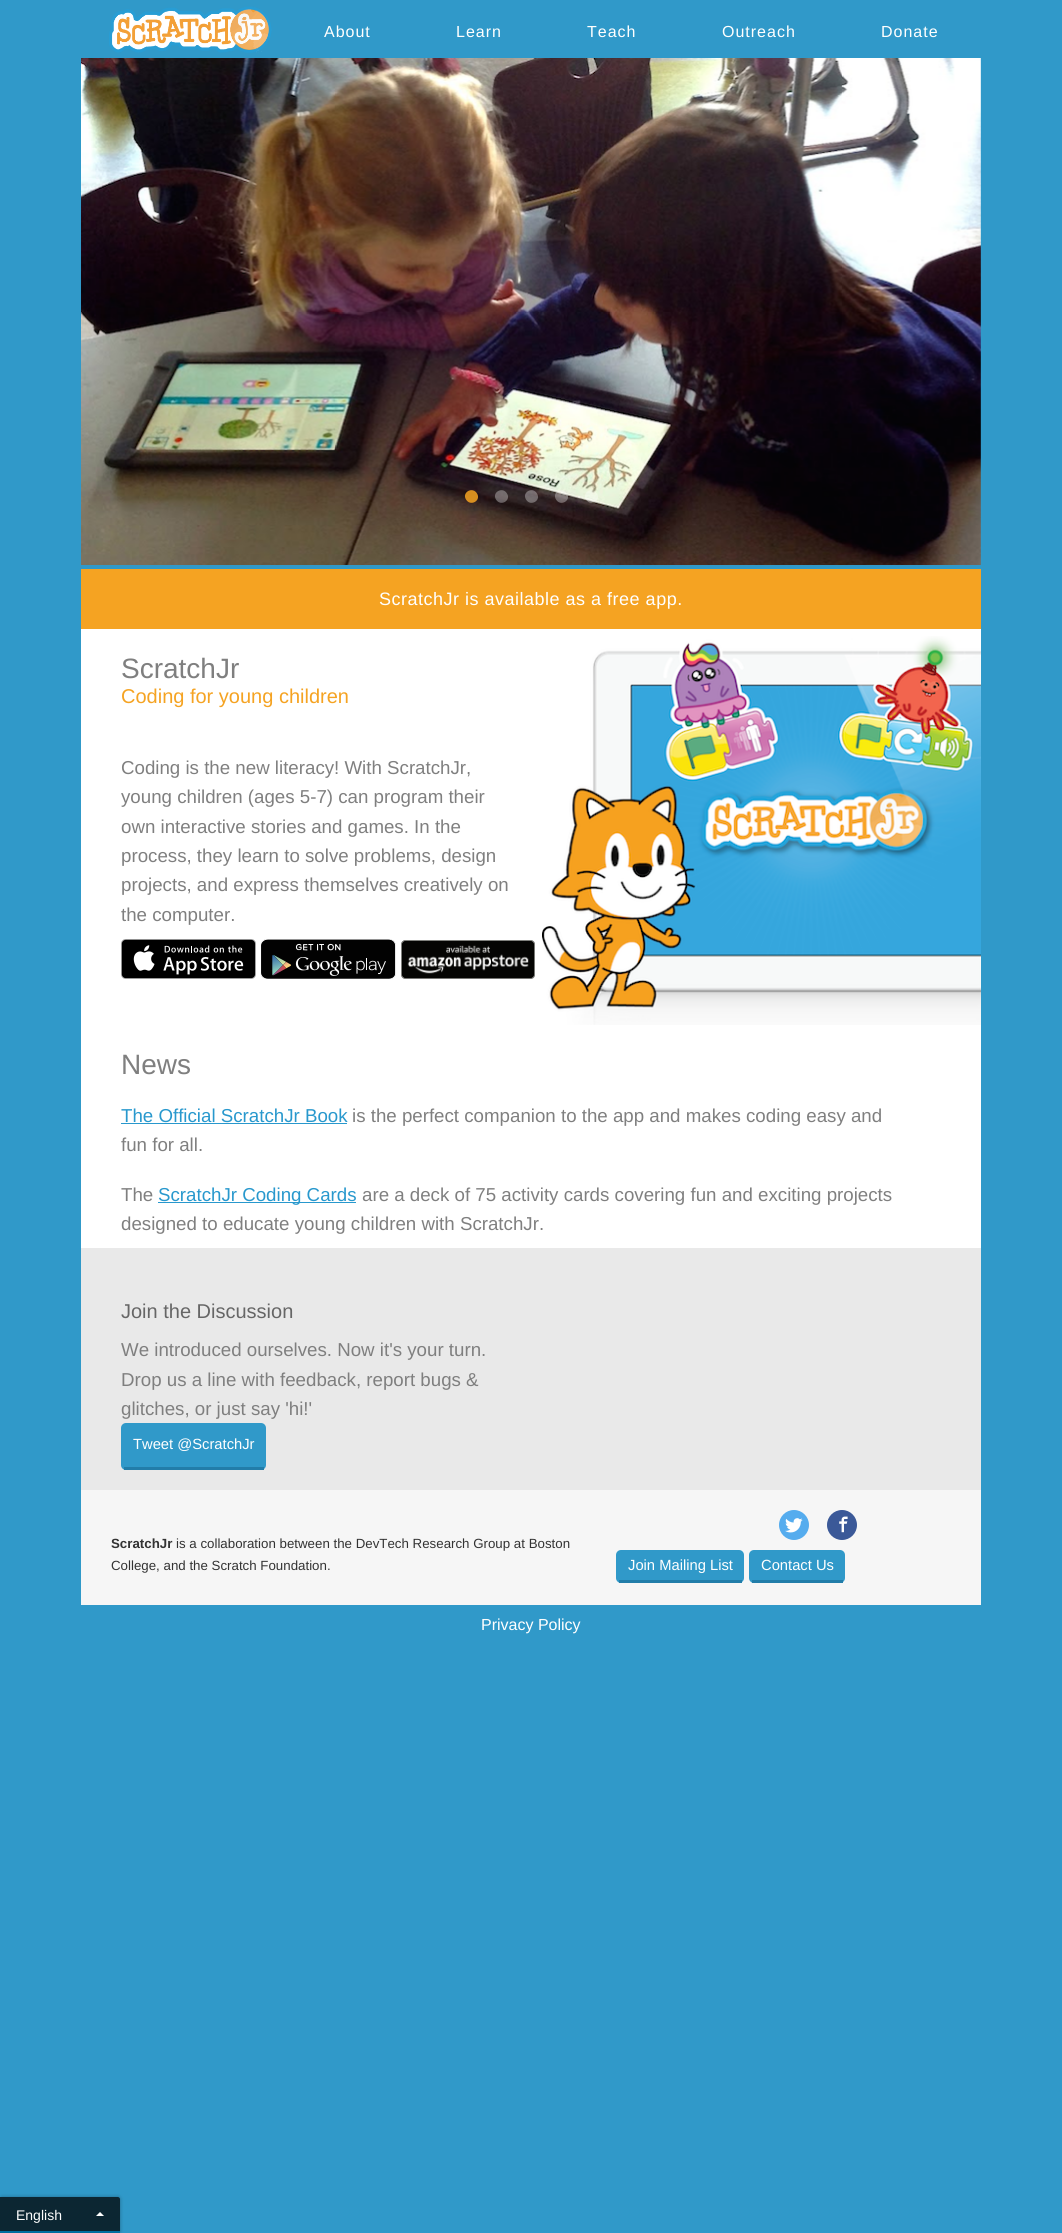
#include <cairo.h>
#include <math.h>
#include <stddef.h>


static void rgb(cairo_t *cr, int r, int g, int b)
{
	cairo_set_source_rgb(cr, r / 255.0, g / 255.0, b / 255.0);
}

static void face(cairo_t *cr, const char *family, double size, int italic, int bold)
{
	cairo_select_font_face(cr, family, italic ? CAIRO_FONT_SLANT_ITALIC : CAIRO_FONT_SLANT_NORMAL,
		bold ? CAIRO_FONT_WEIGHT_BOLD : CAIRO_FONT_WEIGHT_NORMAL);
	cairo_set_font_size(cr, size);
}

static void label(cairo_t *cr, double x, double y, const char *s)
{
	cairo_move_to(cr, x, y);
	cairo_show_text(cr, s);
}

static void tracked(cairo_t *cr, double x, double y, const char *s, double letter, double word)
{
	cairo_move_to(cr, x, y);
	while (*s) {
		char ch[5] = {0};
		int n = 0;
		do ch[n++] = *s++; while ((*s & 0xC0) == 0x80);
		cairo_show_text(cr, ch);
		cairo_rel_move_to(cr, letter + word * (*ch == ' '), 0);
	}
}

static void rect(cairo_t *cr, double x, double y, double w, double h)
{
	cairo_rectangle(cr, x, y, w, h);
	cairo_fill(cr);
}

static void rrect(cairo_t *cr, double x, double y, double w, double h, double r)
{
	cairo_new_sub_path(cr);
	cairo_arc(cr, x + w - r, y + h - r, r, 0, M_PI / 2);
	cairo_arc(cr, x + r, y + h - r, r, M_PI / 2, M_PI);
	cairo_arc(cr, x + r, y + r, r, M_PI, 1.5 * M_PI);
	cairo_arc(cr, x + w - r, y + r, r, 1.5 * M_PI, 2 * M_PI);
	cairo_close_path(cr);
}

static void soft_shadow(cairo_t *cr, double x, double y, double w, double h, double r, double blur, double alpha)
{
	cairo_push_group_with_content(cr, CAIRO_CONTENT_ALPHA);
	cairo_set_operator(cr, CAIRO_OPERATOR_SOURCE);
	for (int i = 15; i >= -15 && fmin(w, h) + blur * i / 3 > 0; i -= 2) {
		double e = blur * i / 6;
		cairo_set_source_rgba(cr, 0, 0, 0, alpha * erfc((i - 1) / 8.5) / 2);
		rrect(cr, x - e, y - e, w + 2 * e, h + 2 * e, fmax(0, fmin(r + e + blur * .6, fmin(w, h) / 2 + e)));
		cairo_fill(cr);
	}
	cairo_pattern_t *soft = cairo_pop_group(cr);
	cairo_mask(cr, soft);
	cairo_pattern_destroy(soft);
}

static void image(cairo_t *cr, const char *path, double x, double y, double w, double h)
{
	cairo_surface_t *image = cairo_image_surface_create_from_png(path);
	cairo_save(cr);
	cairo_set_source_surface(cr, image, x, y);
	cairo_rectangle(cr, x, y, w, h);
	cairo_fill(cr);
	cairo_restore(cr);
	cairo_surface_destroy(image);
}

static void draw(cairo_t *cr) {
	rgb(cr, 48, 153, 201);
	cairo_paint(cr);
	image(cr, "image0.png", 109, 6, 163, 47);
	face(cr, "Liberation Sans", 16, 0, 0);
	rgb(cr, 255, 255, 255);
	tracked(cr, 324, 37, "About", 1, 0);
	tracked(cr, 456, 37, "Learn", 1, 0);
	tracked(cr, 587, 37, "Teach", 1, 0);
	tracked(cr, 722, 37, "Outreach", 1, 0);
	tracked(cr, 881, 37, "Donate", 1, 0);
	image(cr, "image1.png", 81, 58, 900, 507);
	cairo_set_source_rgba(cr, 0.961, 0.639, 0.133, 0.85);
	cairo_new_path(cr);
	cairo_move_to(cr, 477, 493.5);
	cairo_curve_to(cr, 481.5, 500.5, 470.5, 507, 466, 499.5);
	cairo_curve_to(cr, 461.5, 492.5, 472.5, 486, 477, 493.5);
	cairo_close_path(cr);
	cairo_fill(cr);
	cairo_set_source_rgba(cr, 1, 1, 1, 0.33);
	cairo_new_path(cr);
	cairo_move_to(cr, 507, 493.5);
	cairo_curve_to(cr, 511.5, 500.5, 500.5, 507, 496, 499.5);
	cairo_curve_to(cr, 491.5, 492.5, 502.5, 486, 507, 493.5);
	cairo_close_path(cr);
	cairo_move_to(cr, 537, 493.5);
	cairo_curve_to(cr, 541.5, 500.5, 530.5, 507, 526, 499.5);
	cairo_curve_to(cr, 521.5, 492.5, 532.5, 486, 537, 493.5);
	cairo_close_path(cr);
	cairo_fill(cr);
	cairo_new_path(cr);
	cairo_move_to(cr, 567, 493.5);
	cairo_curve_to(cr, 571.5, 500.5, 560.5, 507, 556, 499.5);
	cairo_curve_to(cr, 551.5, 492.5, 562.5, 486, 567, 493.5);
	cairo_close_path(cr);
	cairo_move_to(cr, 597, 493.5);
	cairo_curve_to(cr, 601.5, 500.5, 590.5, 507, 586, 499.5);
	cairo_curve_to(cr, 581.5, 492.5, 592.5, 486, 597, 493.5);
	cairo_close_path(cr);
	cairo_fill(cr);
	rgb(cr, 255, 255, 255);
	rect(cr, 81, 629, 900, 619);
	rgb(cr, 245, 163, 34);
	rect(cr, 81, 569, 900, 60);
	face(cr, "Liberation Sans", 18, 0, 0);
	rgb(cr, 255, 255, 255);
	tracked(cr, 379, 605, "ScratchJr is available as a free app.", 0.5, 0);
	face(cr, "Liberation Sans", 28, 0, 0);
	rgb(cr, 127, 127, 127);
	label(cr, 121, 678, "ScratchJr");
	face(cr, "Liberation Sans", 20, 0, 0);
	rgb(cr, 245, 163, 34);
	label(cr, 121, 703, "Coding for young children");
	face(cr, "Liberation Sans", 18.7, 0, 0);
	rgb(cr, 127, 127, 127);
	label(cr, 121, 774, "Coding is the new literacy! With ScratchJr,");
	label(cr, 121, 803, "young children (ages 5-7) can program their");
	label(cr, 121, 833, "own interactive stories and games. In the");
	label(cr, 121, 862, "process, they learn to solve problems, design");
	label(cr, 121, 891, "projects, and express themselves creatively on");
	label(cr, 121, 921, "the computer.");
	image(cr, "image2.png", 121, 939, 135, 40);
	image(cr, "image3.png", 261, 939, 135, 40);
	image(cr, "image4.png", 401, 940, 134, 39);
	image(cr, "image5.png", 542, 636, 439, 389);
	face(cr, "Liberation Sans", 28, 0, 0);
	label(cr, 121, 1074, "News");
	face(cr, "Liberation Sans", 18.7, 0, 0);
	rgb(cr, 40, 152, 205);
	label(cr, 121, 1122, "The Official ScratchJr Book");
	rect(cr, 121, 1123, 226, 1);
	rgb(cr, 127, 127, 127);
	label(cr, 352, 1122, "is the perfect companion to the app and makes coding easy and");
	label(cr, 121, 1151, "fun for all.");
	label(cr, 121, 1201, "The");
	rgb(cr, 40, 152, 205);
	rect(cr, 158, 1202, 198, 1);
	label(cr, 158, 1201, "ScratchJr Coding Cards");
	rgb(cr, 127, 127, 127);
	label(cr, 362, 1201, "are a deck of 75 activity cards covering fun and exciting projects");
	label(cr, 121, 1230, "designed to educate young children with ScratchJr.");
	rgb(cr, 233, 233, 233);
	rect(cr, 81, 1248, 900, 242);
	face(cr, "Liberation Sans", 20, 0, 0);
	rgb(cr, 102, 102, 102);
	label(cr, 121, 1318, "Join the Discussion");
	face(cr, "Liberation Sans", 18.7, 0, 0);
	rgb(cr, 127, 127, 127);
	label(cr, 121, 1356, "We introduced ourselves. Now it's your turn.");
	label(cr, 121, 1386, "Drop us a line with feedback, report bugs &");
	label(cr, 121, 1415, "glitches, or just say 'hi!'");
	rgb(cr, 48, 153, 201);
	rrect(cr, 121, 1423, 145, 47, 5);
	cairo_fill(cr);
	rgb(cr, 34, 125, 169);
	rect(cr, 124, 1467, 140, 3);
	face(cr, "Liberation Sans", 14.75, 0, 0);
	rgb(cr, 255, 255, 255);
	label(cr, 133, 1449, "Tweet @ScratchJr");
	rgb(cr, 246, 246, 246);
	rect(cr, 81, 1490, 900, 115);
	face(cr, "Liberation Sans", 13.3, 0, 1);
	rgb(cr, 51, 51, 51);
	label(cr, 111, 1548, "ScratchJr");
	face(cr, "Liberation Sans", 13.3, 0, 0);
	label(cr, 176, 1548, "is a collaboration between the DevTech Research Group at Boston");
	label(cr, 111, 1570, "College, and the Scratch Foundation.");
	rgb(cr, 85, 172, 238);
	cairo_new_path(cr);
	cairo_arc(cr, 794, 1525, 15, 0, 2 * M_PI);
	cairo_fill(cr);
	image(cr, "image6.png", 785, 1518, 18, 15);
	rgb(cr, 59, 89, 152);
	cairo_arc(cr, 842, 1525, 15, 0, 2 * M_PI);
	cairo_fill(cr);
	image(cr, "image7.png", 839, 1516, 9, 17);
	rgb(cr, 48, 153, 201);
	rrect(cr, 616, 1550, 128, 33, 5);
	cairo_fill(cr);
	rgb(cr, 34, 125, 169);
	rect(cr, 619, 1580, 123, 3);
	face(cr, "Liberation Sans", 14.75, 0, 0);
	rgb(cr, 255, 255, 255);
	label(cr, 628, 1570, "Join Mailing List");
	rgb(cr, 48, 153, 201);
	rrect(cr, 749, 1550, 96, 33, 5);
	cairo_fill(cr);
	rgb(cr, 34, 125, 169);
	rect(cr, 752, 1580, 91, 3);
	rgb(cr, 255, 255, 255);
	label(cr, 761, 1570, "Contact Us");
	face(cr, "Liberation Sans", 16, 0, 0);
	label(cr, 481, 1630, "Privacy Policy");
	cairo_save(cr);
	cairo_set_fill_rule(cr, CAIRO_FILL_RULE_EVEN_ODD);
	cairo_new_path(cr);
	cairo_move_to(cr, 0, 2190);
	cairo_line_to(cr, 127, 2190);
	cairo_line_to(cr, 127, 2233);
	cairo_line_to(cr, 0, 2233);
	cairo_close_path(cr);
	cairo_move_to(cr, 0, 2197);
	cairo_line_to(cr, 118, 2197);
	cairo_curve_to(cr, 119, 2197, 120, 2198, 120, 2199);
	cairo_line_to(cr, 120, 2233);
	cairo_line_to(cr, 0, 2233);
	cairo_close_path(cr);
	cairo_clip(cr);
	rgb(cr, 0, 0, 0);
	soft_shadow(cr, 0, 2197, 120, 36, 2, 2, 0.3);
	cairo_restore(cr);
	cairo_set_source_rgba(cr, 0, 0, 0, 0.75);
	cairo_new_path(cr);
	cairo_move_to(cr, 0, 2197);
	cairo_line_to(cr, 118, 2197);
	cairo_curve_to(cr, 119, 2197, 120, 2198, 120, 2199);
	cairo_line_to(cr, 120, 2233);
	cairo_line_to(cr, 0, 2233);
	cairo_close_path(cr);
	cairo_fill(cr);
	rgb(cr, 0, 111, 159);
	rect(cr, 0, 2231, 120, 2);
	face(cr, "Liberation Sans", 14, 0, 0);
	rgb(cr, 255, 255, 255);
	label(cr, 16, 2220, "English");
	cairo_new_path(cr);
	cairo_move_to(cr, 104, 2216);
	cairo_line_to(cr, 96, 2216);
	cairo_line_to(cr, 100, 2212);
	cairo_close_path(cr);
	cairo_fill(cr);
}

int main(void) {
	cairo_surface_t *surface = cairo_image_surface_create(CAIRO_FORMAT_RGB24, 1062, 2233);
	cairo_t *cr = cairo_create(surface);
	cairo_font_options_t *options = cairo_font_options_create();
	cairo_font_options_set_hint_metrics(options, CAIRO_HINT_METRICS_OFF);
	cairo_font_options_set_hint_style(options, CAIRO_HINT_STYLE_NONE);
	cairo_set_font_options(cr, options);
	cairo_set_miter_limit(cr, 4);
	draw(cr);
	cairo_surface_write_to_png(surface, "render.png");
	cairo_font_options_destroy(options);
	cairo_destroy(cr);
	cairo_surface_destroy(surface);
	return 0;
}
